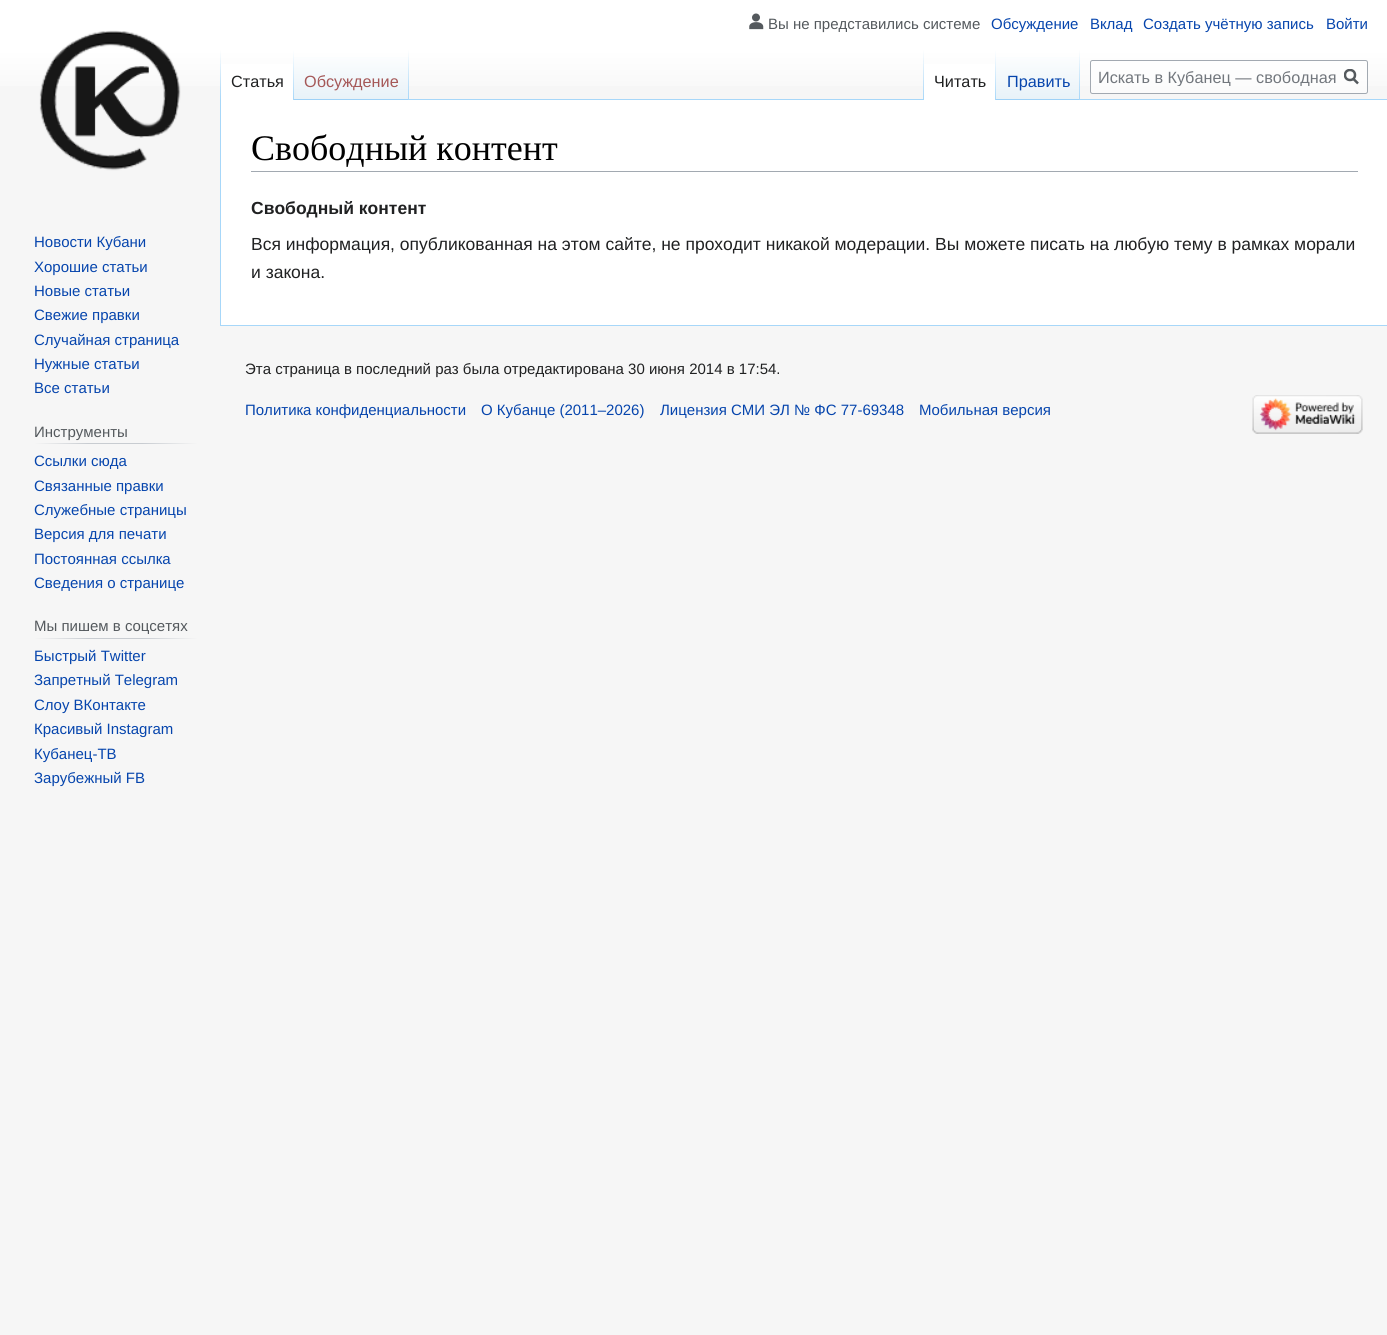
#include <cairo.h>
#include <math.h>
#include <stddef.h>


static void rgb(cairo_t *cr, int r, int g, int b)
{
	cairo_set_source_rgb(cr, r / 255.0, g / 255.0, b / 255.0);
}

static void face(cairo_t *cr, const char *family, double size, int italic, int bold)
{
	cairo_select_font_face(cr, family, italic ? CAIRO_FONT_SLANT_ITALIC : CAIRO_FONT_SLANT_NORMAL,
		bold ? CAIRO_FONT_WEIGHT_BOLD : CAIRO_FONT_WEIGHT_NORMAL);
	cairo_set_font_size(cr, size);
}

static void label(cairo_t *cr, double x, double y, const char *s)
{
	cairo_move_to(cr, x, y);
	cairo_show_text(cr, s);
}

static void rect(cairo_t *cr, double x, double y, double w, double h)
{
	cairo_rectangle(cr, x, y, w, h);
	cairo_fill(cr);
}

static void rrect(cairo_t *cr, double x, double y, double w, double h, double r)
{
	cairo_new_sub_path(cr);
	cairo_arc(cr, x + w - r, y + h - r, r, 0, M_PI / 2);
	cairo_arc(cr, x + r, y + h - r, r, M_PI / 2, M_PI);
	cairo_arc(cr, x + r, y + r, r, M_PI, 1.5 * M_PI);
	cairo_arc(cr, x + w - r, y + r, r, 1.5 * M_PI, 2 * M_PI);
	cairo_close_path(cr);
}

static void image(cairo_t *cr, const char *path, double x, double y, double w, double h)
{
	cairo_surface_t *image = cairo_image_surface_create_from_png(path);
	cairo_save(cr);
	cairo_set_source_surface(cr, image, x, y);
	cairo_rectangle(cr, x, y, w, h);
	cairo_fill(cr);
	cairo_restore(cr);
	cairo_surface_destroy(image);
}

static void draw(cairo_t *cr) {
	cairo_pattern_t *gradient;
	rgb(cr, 246, 246, 246);
	cairo_paint(cr);
	gradient = cairo_pattern_create_linear(694, 0, 694, 100);
	cairo_pattern_add_color_stop_rgba(gradient, 0.5, 1, 1, 1, 1);
	cairo_pattern_add_color_stop_rgba(gradient, 1, 0.965, 0.965, 0.965, 1);
	cairo_set_source(cr, gradient);
	cairo_pattern_destroy(gradient);
	rect(cr, 0, 0, 1387, 86);
	image(cr, "image0.png", 749, 13, 15, 17);
	face(cr, "Liberation Sans", 15, 0, 0);
	rgb(cr, 84, 89, 93);
	label(cr, 768, 29, "Вы не представились системе");
	rgb(cr, 6, 69, 173);
	label(cr, 991, 29, "Обсуждение");
	label(cr, 1090, 29, "Вклад");
	label(cr, 1143, 29, "Создать учётную запись");
	label(cr, 1326, 29, "Войти");
	rgb(cr, 167, 215, 249);
	rect(cr, 220, 325, 1167, 1);
	rect(cr, 220, 99, 1, 227);
	gradient = cairo_pattern_create_linear(221, 50, 221, 100);
	cairo_pattern_add_color_stop_rgba(gradient, 0, 0.655, 0.843, 0.976, 0);
	cairo_pattern_add_color_stop_rgba(gradient, 1, 0.655, 0.843, 0.976, 1);
	cairo_set_source(cr, gradient);
	cairo_pattern_destroy(gradient);
	rect(cr, 220, 50, 1, 50);
	rgb(cr, 255, 255, 255);
	rect(cr, 221, 64, 72, 36);
	gradient = cairo_pattern_create_linear(293, 50, 293, 100);
	cairo_pattern_add_color_stop_rgba(gradient, 0, 1, 1, 1, 1);
	cairo_pattern_add_color_stop_rgba(gradient, 1, 0.655, 0.843, 0.976, 1);
	cairo_set_source(cr, gradient);
	cairo_pattern_destroy(gradient);
	rect(cr, 293, 50, 1, 50);
	face(cr, "Liberation Sans", 16.25, 0, 0);
	rgb(cr, 32, 33, 34);
	label(cr, 231, 87, "Статья");
	gradient = cairo_pattern_create_linear(351, 100, 351, 50);
	cairo_pattern_add_color_stop_rgba(gradient, 0, 0.467, 0.757, 0.965, 1);
	cairo_pattern_add_color_stop_rgba(gradient, 0.03, 0.91, 0.949, 0.973, 1);
	cairo_pattern_add_color_stop_rgba(gradient, 1, 1, 1, 1, 1);
	cairo_set_source(cr, gradient);
	cairo_pattern_destroy(gradient);
	rect(cr, 294, 57, 115, 43);
	gradient = cairo_pattern_create_linear(408, 50, 408, 100);
	cairo_pattern_add_color_stop_rgba(gradient, 0, 0.655, 0.843, 0.976, 0);
	cairo_pattern_add_color_stop_rgba(gradient, 1, 0.655, 0.843, 0.976, 1);
	cairo_set_source(cr, gradient);
	cairo_pattern_destroy(gradient);
	rect(cr, 408, 50, 1, 50);
	rgb(cr, 165, 88, 88);
	label(cr, 304, 87, "Обсуждение");
	rgb(cr, 167, 215, 249);
	rect(cr, 409, 99, 978, 1);
	gradient = cairo_pattern_create_linear(923, 50, 923, 100);
	cairo_pattern_add_color_stop_rgba(gradient, 0, 0.655, 0.843, 0.976, 0);
	cairo_pattern_add_color_stop_rgba(gradient, 1, 0.655, 0.843, 0.976, 1);
	cairo_set_source(cr, gradient);
	cairo_pattern_destroy(gradient);
	rect(cr, 923, 50, 1, 50);
	rgb(cr, 255, 255, 255);
	rect(cr, 924, 64, 71, 36);
	gradient = cairo_pattern_create_linear(996, 50, 996, 100);
	cairo_pattern_add_color_stop_rgba(gradient, 0, 1, 1, 1, 1);
	cairo_pattern_add_color_stop_rgba(gradient, 1, 0.655, 0.843, 0.976, 1);
	cairo_set_source(cr, gradient);
	cairo_pattern_destroy(gradient);
	rect(cr, 995, 50, 1, 50);
	rgb(cr, 32, 33, 34);
	label(cr, 934, 87, "Читать");
	gradient = cairo_pattern_create_linear(1038, 100, 1038, 50);
	cairo_pattern_add_color_stop_rgba(gradient, 0, 0.467, 0.757, 0.965, 1);
	cairo_pattern_add_color_stop_rgba(gradient, 0.03, 0.91, 0.949, 0.973, 1);
	cairo_pattern_add_color_stop_rgba(gradient, 1, 1, 1, 1, 1);
	cairo_set_source(cr, gradient);
	cairo_pattern_destroy(gradient);
	rect(cr, 996, 57, 84, 43);
	gradient = cairo_pattern_create_linear(1079, 50, 1079, 100);
	cairo_pattern_add_color_stop_rgba(gradient, 0, 0.655, 0.843, 0.976, 0);
	cairo_pattern_add_color_stop_rgba(gradient, 1, 0.655, 0.843, 0.976, 1);
	cairo_set_source(cr, gradient);
	cairo_pattern_destroy(gradient);
	rect(cr, 1079, 50, 1, 50);
	rgb(cr, 6, 69, 173);
	label(cr, 1007, 87, "Править");
	cairo_set_source_rgba(cr, 1, 1, 1, 0.5);
	rrect(cr, 1090.5, 60.5, 277, 33, 2);
	cairo_fill_preserve(cr);
	rgb(cr, 162, 169, 177);
	cairo_set_line_width(cr, 1);
	cairo_stroke(cr);
	cairo_save(cr);
	cairo_rectangle(cr, 1098, 68, 238, 18);
	cairo_clip(cr);
	rgb(cr, 114, 119, 125);
	label(cr, 1098, 83, "Искать в Кубанец — свободная");
	cairo_restore(cr);
	cairo_new_path(cr);
	cairo_move_to(cr, 1358, 83.5);
	cairo_line_to(cr, 1353, 78.5);
	rgb(cr, 84, 89, 93);
	cairo_set_line_width(cr, 2.5);
	cairo_stroke(cr);
	cairo_save(cr);
	cairo_rectangle(cr, 1344, 69, 15, 16);
	cairo_clip(cr);
	cairo_arc(cr, 1350, 75, 5, 0, 2 * M_PI);
	cairo_stroke(cr);
	cairo_restore(cr);
	image(cr, "image1.png", 39, 30, 142, 141);
	face(cr, "Liberation Sans", 15, 0, 0);
	rgb(cr, 6, 69, 173);
	label(cr, 34, 247, "Новости Кубани");
	label(cr, 34, 272, "Хорошие статьи");
	label(cr, 34, 296, "Новые статьи");
	label(cr, 34, 320, "Свежие правки");
	label(cr, 34, 345, "Случайная страница");
	label(cr, 34, 369, "Нужные статьи");
	label(cr, 34, 393, "Все статьи");
	gradient = cairo_pattern_create_linear(34, 443, 198, 443);
	cairo_pattern_add_color_stop_rgba(gradient, 0, 0.965, 0.965, 0.965, 1);
	cairo_pattern_add_color_stop_rgba(gradient, 0.33, 0.784, 0.8, 0.82, 1);
	cairo_pattern_add_color_stop_rgba(gradient, 0.66, 0.784, 0.8, 0.82, 1);
	cairo_pattern_add_color_stop_rgba(gradient, 1, 0.965, 0.965, 0.965, 1);
	cairo_set_source(cr, gradient);
	cairo_pattern_destroy(gradient);
	rect(cr, 34, 443, 164, 1);
	rgb(cr, 84, 89, 93);
	label(cr, 34, 437, "Инструменты");
	rgb(cr, 6, 69, 173);
	label(cr, 34, 466, "Ссылки сюда");
	label(cr, 34, 491, "Связанные правки");
	label(cr, 34, 515, "Служебные страницы");
	label(cr, 34, 539, "Версия для печати");
	label(cr, 34, 564, "Постоянная ссылка");
	label(cr, 34, 588, "Сведения о странице");
	gradient = cairo_pattern_create_linear(34, 638, 198, 638);
	cairo_pattern_add_color_stop_rgba(gradient, 0, 0.965, 0.965, 0.965, 1);
	cairo_pattern_add_color_stop_rgba(gradient, 0.33, 0.784, 0.8, 0.82, 1);
	cairo_pattern_add_color_stop_rgba(gradient, 0.66, 0.784, 0.8, 0.82, 1);
	cairo_pattern_add_color_stop_rgba(gradient, 1, 0.965, 0.965, 0.965, 1);
	cairo_set_source(cr, gradient);
	cairo_pattern_destroy(gradient);
	rect(cr, 34, 638, 164, 1);
	rgb(cr, 84, 89, 93);
	label(cr, 34, 631, "Мы пишем в соцсетях");
	rgb(cr, 6, 69, 173);
	label(cr, 34, 661, "Быстрый Twitter");
	label(cr, 34, 685, "Запретный Telegram");
	label(cr, 34, 710, "Слоу ВКонтакте");
	label(cr, 34, 734, "Красивый Instagram");
	label(cr, 34, 759, "Кубанец-ТВ");
	label(cr, 34, 783, "Зарубежный FB");
	rgb(cr, 255, 255, 255);
	rect(cr, 221, 100, 1166, 225);
	rgb(cr, 162, 169, 177);
	rect(cr, 251, 171, 1107, 1);
	face(cr, "Liberation Serif", 36, 0, 0);
	rgb(cr, 0, 0, 0);
	label(cr, 251, 160, "Свободный контент");
	face(cr, "Liberation Sans", 17.5, 0, 1);
	rgb(cr, 32, 33, 34);
	label(cr, 251, 214, "Свободный контент");
	face(cr, "Liberation Sans", 17.5, 0, 0);
	label(cr, 251, 250, "Вся информация, опубликованная на этом сайте, не проходит никакой модерации. Вы можете писать на любую тему в рамках морали");
	label(cr, 251, 278, "и закона.");
	face(cr, "Liberation Sans", 15, 0, 0);
	label(cr, 245, 374, "Эта страница в последний раз была отредактирована 30 июня 2014 в 17:54.");
	rgb(cr, 6, 69, 173);
	label(cr, 245, 415, "Политика конфиденциальности");
	label(cr, 481, 415, "О Кубанце (2011–2026)");
	label(cr, 660, 415, "Лицензия СМИ ЭЛ № ФС 77-69348");
	label(cr, 919, 415, "Мобильная версия");
	image(cr, "image2.png", 1252, 395, 111, 39);
}

int main(void) {
	cairo_surface_t *surface = cairo_image_surface_create(CAIRO_FORMAT_RGB24, 1387, 1335);
	cairo_t *cr = cairo_create(surface);
	cairo_font_options_t *options = cairo_font_options_create();
	cairo_font_options_set_hint_metrics(options, CAIRO_HINT_METRICS_OFF);
	cairo_font_options_set_hint_style(options, CAIRO_HINT_STYLE_NONE);
	cairo_set_font_options(cr, options);
	cairo_set_miter_limit(cr, 4);
	draw(cr);
	cairo_surface_write_to_png(surface, "render.png");
	cairo_font_options_destroy(options);
	cairo_destroy(cr);
	cairo_surface_destroy(surface);
	return 0;
}
